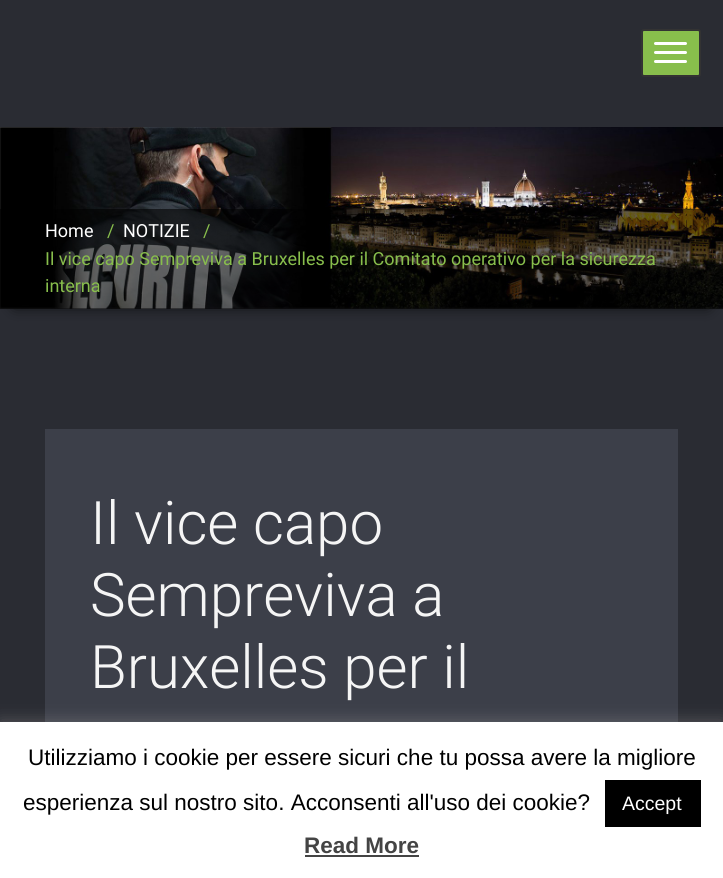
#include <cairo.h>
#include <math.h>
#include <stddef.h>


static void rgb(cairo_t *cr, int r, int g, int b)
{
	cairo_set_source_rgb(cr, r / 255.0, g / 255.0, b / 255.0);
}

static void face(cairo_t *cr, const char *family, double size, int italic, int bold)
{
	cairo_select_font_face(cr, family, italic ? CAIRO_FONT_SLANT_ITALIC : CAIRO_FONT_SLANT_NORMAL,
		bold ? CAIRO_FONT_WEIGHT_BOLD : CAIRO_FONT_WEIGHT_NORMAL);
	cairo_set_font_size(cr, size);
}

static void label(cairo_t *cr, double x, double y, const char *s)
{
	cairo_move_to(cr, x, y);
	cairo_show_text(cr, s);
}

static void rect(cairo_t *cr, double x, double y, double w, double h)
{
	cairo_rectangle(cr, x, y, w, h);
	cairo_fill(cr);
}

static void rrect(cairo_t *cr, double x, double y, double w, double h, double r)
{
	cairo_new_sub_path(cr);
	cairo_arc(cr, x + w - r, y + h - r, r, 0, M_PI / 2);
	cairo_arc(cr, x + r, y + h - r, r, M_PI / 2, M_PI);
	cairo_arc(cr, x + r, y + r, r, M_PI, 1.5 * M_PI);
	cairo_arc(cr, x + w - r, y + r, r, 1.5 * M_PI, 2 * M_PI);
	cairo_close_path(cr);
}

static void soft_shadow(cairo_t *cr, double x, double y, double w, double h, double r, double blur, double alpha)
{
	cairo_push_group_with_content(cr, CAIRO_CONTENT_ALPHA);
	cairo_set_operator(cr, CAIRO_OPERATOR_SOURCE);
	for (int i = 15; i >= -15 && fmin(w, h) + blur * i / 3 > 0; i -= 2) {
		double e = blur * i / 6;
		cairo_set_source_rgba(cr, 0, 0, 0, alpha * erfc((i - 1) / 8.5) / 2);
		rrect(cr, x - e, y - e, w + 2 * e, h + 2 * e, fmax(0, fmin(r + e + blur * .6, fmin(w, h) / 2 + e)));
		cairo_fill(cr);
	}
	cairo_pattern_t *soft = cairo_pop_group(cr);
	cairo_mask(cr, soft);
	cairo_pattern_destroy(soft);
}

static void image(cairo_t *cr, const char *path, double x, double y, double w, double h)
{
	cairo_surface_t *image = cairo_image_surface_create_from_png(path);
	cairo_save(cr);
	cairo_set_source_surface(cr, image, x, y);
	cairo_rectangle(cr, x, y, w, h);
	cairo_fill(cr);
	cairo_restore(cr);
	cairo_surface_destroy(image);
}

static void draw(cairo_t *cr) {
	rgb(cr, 42, 44, 51);
	cairo_paint(cr);
	rgb(cr, 136, 190, 76);
	rrect(cr, 642, 30, 58, 46, 2);
	cairo_fill_preserve(cr);
	rgb(cr, 51, 51, 51);
	cairo_stroke(cr);
	rgb(cr, 255, 255, 255);
	rrect(cr, 654, 42, 33, 3, 1.5);
	cairo_fill(cr);
	rrect(cr, 654, 51, 33, 3, 1.5);
	cairo_fill(cr);
	rrect(cr, 654, 60, 33, 3, 1.5);
	cairo_fill(cr);
	rgb(cr, 0, 0, 0);
	soft_shadow(cr, 15, 153, 693, 152, 0, 7.5, 1);
	image(cr, "image0.png", 0, 127, 723, 182);
	cairo_set_source_rgba(cr, 0, 0, 0, 0.6);
	rect(cr, 0, 209, 723, 100);
	face(cr, "Roboto", 18, 0, 0);
	rgb(cr, 255, 255, 255);
	label(cr, 45, 237, "Home");
	rgb(cr, 136, 190, 76);
	label(cr, 107, 237, "/");
	rgb(cr, 255, 255, 255);
	label(cr, 123, 237, "NOTIZIE");
	rgb(cr, 136, 190, 76);
	label(cr, 203, 237, "/");
	label(cr, 45, 265, "Il vice capo Sempreviva a Bruxelles per il Comitato operativo per la sicurezza");
	label(cr, 45, 292, "interna");
	rgb(cr, 60, 63, 73);
	rect(cr, 45, 429, 633, 293);
	face(cr, "Roboto Light", 60, 0, 0);
	rgb(cr, 245, 245, 245);
	label(cr, 90, 544, "Il vice capo");
	label(cr, 90, 616, "Sempreviva a");
	label(cr, 90, 688, "Bruxelles per il");
	rgb(cr, 172, 171, 171);
	soft_shadow(cr, 0, 720, 723, 158, 0, 7.5, 0.3);
	rgb(cr, 255, 255, 255);
	rect(cr, 0, 722, 723, 156);
	face(cr, "Liberation Sans", 22.5, 0, 0);
	rgb(cr, 0, 0, 0);
	label(cr, 28, 765, "Utilizziamo i cookie per essere sicuri che tu possa avere la migliore");
	label(cr, 23, 810, "esperienza sul nostro sito. Acconsenti all'uso dei cookie?");
	rect(cr, 605, 780, 96, 47);
	face(cr, "Liberation Sans", 19.5, 0, 0);
	rgb(cr, 255, 255, 255);
	label(cr, 622, 810, "Accept");
	face(cr, "Liberation Sans", 22.5, 0, 1);
	rgb(cr, 68, 68, 68);
	label(cr, 304, 853, "Read More");
	rect(cr, 305, 855, 114, 2);
}

int main(void) {
	cairo_surface_t *surface = cairo_image_surface_create(CAIRO_FORMAT_RGB24, 723, 878);
	cairo_t *cr = cairo_create(surface);
	cairo_font_options_t *options = cairo_font_options_create();
	cairo_font_options_set_hint_metrics(options, CAIRO_HINT_METRICS_OFF);
	cairo_font_options_set_hint_style(options, CAIRO_HINT_STYLE_NONE);
	cairo_set_font_options(cr, options);
	cairo_set_miter_limit(cr, 4);
	draw(cr);
	cairo_surface_write_to_png(surface, "render.png");
	cairo_font_options_destroy(options);
	cairo_destroy(cr);
	cairo_surface_destroy(surface);
	return 0;
}
